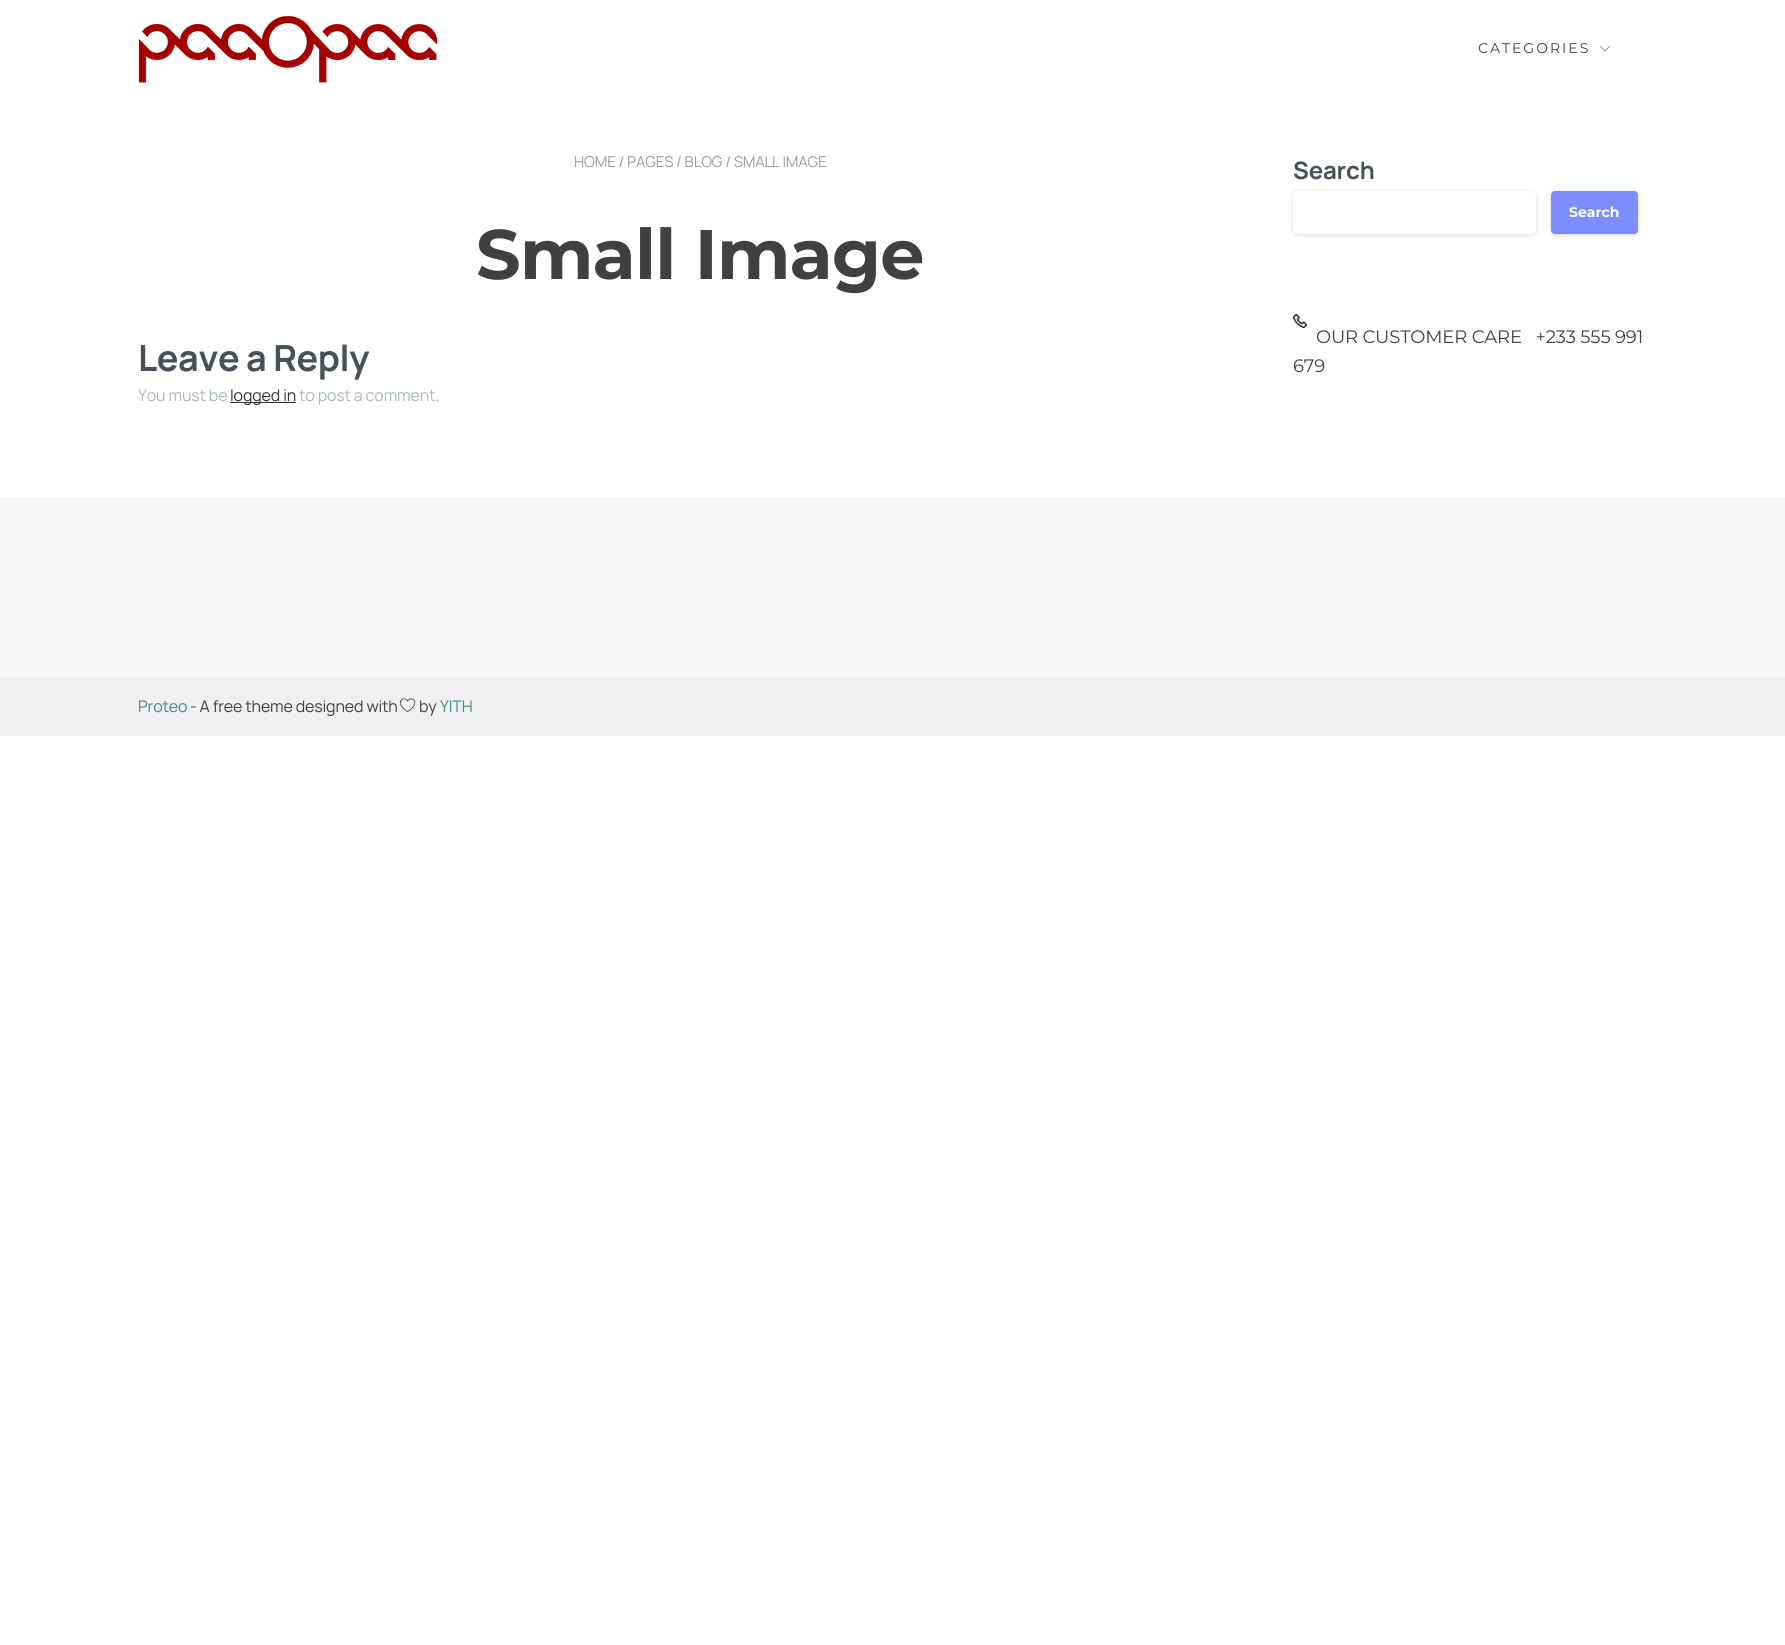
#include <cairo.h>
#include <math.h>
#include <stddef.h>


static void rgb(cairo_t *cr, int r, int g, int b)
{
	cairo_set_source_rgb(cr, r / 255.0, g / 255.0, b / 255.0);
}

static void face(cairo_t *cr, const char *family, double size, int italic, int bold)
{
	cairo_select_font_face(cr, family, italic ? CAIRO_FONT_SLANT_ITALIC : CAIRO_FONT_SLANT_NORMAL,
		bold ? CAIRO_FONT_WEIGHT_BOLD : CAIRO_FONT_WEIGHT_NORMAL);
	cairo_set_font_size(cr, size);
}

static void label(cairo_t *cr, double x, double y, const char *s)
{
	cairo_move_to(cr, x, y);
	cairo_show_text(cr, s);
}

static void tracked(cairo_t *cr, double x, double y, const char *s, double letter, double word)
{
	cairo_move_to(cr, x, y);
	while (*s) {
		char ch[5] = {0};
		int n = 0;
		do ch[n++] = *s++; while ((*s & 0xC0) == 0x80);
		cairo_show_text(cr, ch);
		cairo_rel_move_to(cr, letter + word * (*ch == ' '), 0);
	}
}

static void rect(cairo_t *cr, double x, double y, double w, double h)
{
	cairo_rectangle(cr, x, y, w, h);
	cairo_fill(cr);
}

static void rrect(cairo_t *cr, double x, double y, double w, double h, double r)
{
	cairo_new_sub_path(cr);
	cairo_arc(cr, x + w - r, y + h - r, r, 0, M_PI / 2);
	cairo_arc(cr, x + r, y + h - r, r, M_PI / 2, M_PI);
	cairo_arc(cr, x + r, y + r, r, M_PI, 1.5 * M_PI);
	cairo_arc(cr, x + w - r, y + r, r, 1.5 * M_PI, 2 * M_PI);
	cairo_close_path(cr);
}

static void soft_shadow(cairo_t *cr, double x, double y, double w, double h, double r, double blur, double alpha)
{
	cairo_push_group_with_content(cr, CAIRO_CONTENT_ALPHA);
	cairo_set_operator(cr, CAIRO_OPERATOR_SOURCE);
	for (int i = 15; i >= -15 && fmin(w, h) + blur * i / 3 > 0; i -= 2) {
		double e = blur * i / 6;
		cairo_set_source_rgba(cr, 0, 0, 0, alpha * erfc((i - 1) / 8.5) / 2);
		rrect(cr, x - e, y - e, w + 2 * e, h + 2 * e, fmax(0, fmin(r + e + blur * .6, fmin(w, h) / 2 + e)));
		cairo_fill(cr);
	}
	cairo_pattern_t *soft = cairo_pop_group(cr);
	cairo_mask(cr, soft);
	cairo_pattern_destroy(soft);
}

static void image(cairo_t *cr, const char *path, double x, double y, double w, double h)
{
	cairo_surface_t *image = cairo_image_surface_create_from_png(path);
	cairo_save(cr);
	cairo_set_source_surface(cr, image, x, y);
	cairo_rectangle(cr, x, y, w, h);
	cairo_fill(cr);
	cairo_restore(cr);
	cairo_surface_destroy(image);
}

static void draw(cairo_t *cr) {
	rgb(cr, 255, 255, 255);
	cairo_paint(cr);
	image(cr, "image0.png", 138, 16, 300, 67);
	face(cr, "Montserrat", 14, 0, 0);
	rgb(cr, 64, 64, 64);
	tracked(cr, 1478, 53, "CATEGORIES", 2, 0);
	image(cr, "image1.png", 1600, 46, 10, 6);
	face(cr, "Manrope", 15, 0, 0);
	rgb(cr, 157, 157, 157);
	tracked(cr, 574, 167, "HOME / PAGES / BLOG / SMALL IMAGE", -0.15, 0);
	face(cr, "Montserrat", 70, 0, 1);
	rgb(cr, 64, 64, 64);
	tracked(cr, 476, 279, "Small Image", -0.75, 0);
	face(cr, "Manrope", 36, 0, 1);
	rgb(cr, 73, 80, 87);
	tracked(cr, 138, 371, "Leave a Reply", -0.4, 0);
	face(cr, "Manrope", 16, 0, 0);
	rgb(cr, 173, 181, 189);
	tracked(cr, 138, 401, "You must be", -0.15, 0);
	rgb(cr, 51, 51, 51);
	rect(cr, 230, 402, 66, 1);
	tracked(cr, 230, 401, "logged in", -0.15, 0);
	rgb(cr, 173, 181, 189);
	tracked(cr, 299, 401, "to post a comment.", -0.15, 0);
	face(cr, "Manrope", 24, 0, 1);
	rgb(cr, 73, 80, 87);
	tracked(cr, 1293, 179, "Search", -0.15, 0);
	rgb(cr, 0, 0, 0);
	soft_shadow(cr, 1293, 192, 243, 43, 4, 2.5, 0.15);
	rgb(cr, 255, 255, 255);
	rrect(cr, 1293, 191, 243, 43, 4);
	cairo_fill(cr);
	rgb(cr, 0, 0, 0);
	soft_shadow(cr, 1551, 192, 87, 43, 4, 2.5, 0.15);
	rgb(cr, 125, 141, 255);
	rrect(cr, 1551, 191, 87, 43, 4);
	cairo_fill(cr);
	face(cr, "Montserrat", 14, 0, 1);
	rgb(cr, 255, 255, 255);
	label(cr, 1569, 217, "Search");
	image(cr, "image2.png", 1293, 314, 14, 14);
	face(cr, "Montserrat", 18, 0, 0);
	rgb(cr, 64, 64, 64);
	tracked(cr, 1316, 343, "OUR CUSTOMER CARE   +233 555 991", -0.15, 0);
	tracked(cr, 1293, 372, "679", -0.15, 0);
	rgb(cr, 247, 247, 247);
	rect(cr, 0, 497, 1785, 180);
	rgb(cr, 240, 240, 240);
	rect(cr, 0, 677, 1785, 59);
	face(cr, "Manrope", 16, 0, 0);
	rgb(cr, 68, 138, 133);
	tracked(cr, 138, 712, "Proteo", -0.15, 0);
	rgb(cr, 64, 64, 64);
	tracked(cr, 190, 712, "- A free theme designed with", -0.15, 0);
	image(cr, "image3.png", 400, 698, 16, 14);
	tracked(cr, 419, 712, "by", -0.15, 0);
	rgb(cr, 68, 138, 133);
	tracked(cr, 440, 712, "YITH", -0.15, 0);
}

int main(void) {
	cairo_surface_t *surface = cairo_image_surface_create(CAIRO_FORMAT_RGB24, 1785, 1645);
	cairo_t *cr = cairo_create(surface);
	cairo_font_options_t *options = cairo_font_options_create();
	cairo_font_options_set_hint_metrics(options, CAIRO_HINT_METRICS_OFF);
	cairo_font_options_set_hint_style(options, CAIRO_HINT_STYLE_NONE);
	cairo_set_font_options(cr, options);
	cairo_set_miter_limit(cr, 4);
	draw(cr);
	cairo_surface_write_to_png(surface, "render.png");
	cairo_font_options_destroy(options);
	cairo_destroy(cr);
	cairo_surface_destroy(surface);
	return 0;
}
